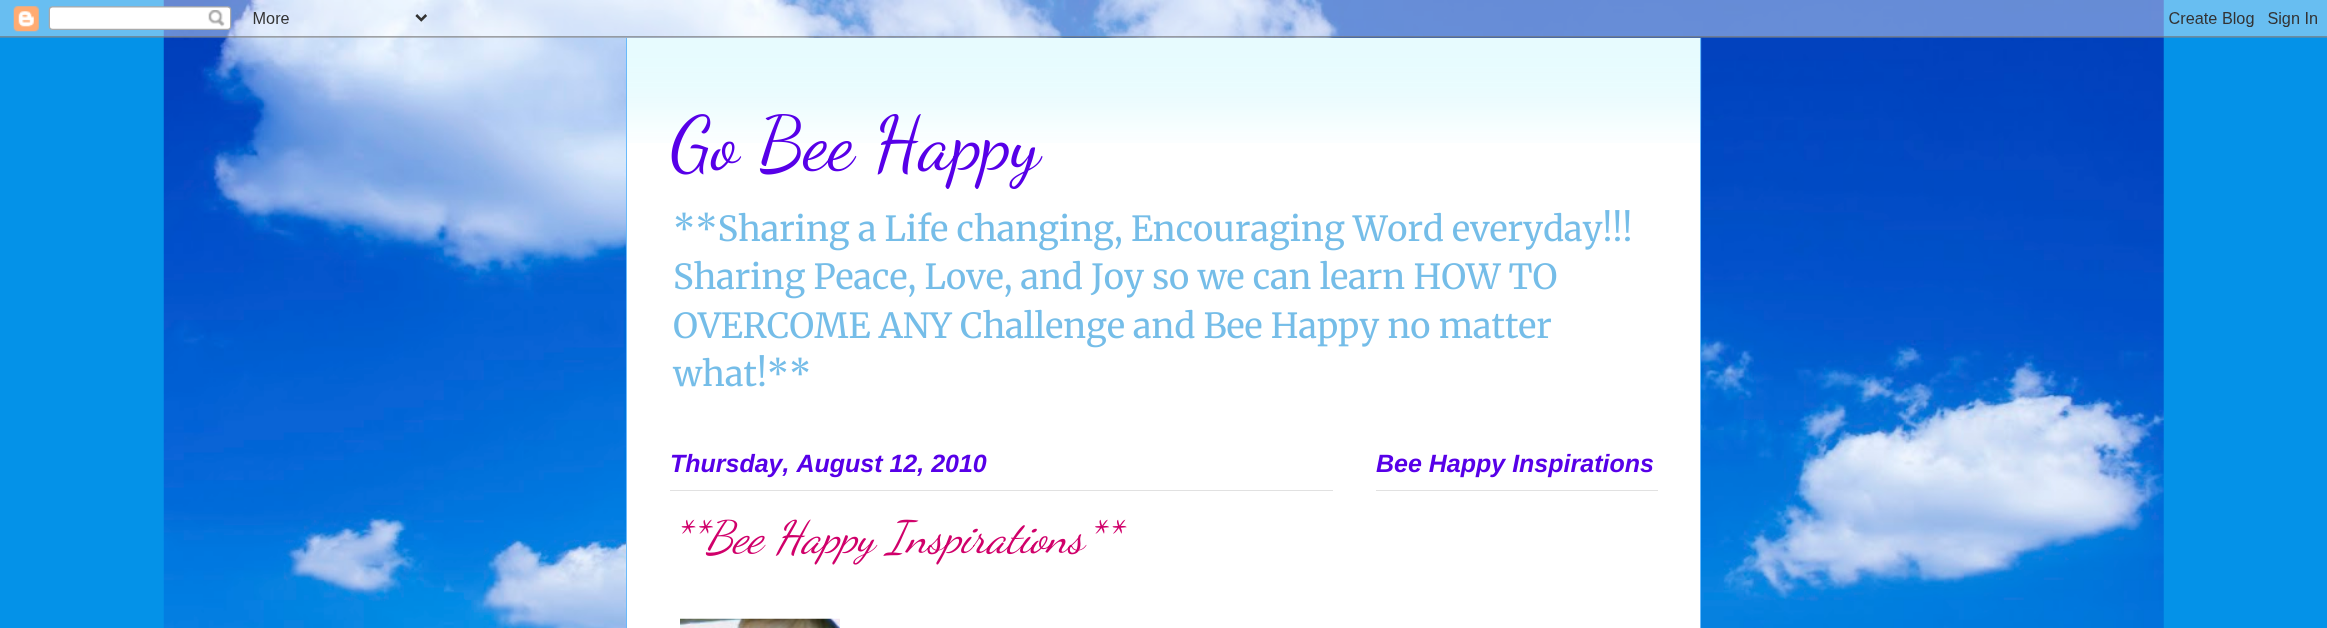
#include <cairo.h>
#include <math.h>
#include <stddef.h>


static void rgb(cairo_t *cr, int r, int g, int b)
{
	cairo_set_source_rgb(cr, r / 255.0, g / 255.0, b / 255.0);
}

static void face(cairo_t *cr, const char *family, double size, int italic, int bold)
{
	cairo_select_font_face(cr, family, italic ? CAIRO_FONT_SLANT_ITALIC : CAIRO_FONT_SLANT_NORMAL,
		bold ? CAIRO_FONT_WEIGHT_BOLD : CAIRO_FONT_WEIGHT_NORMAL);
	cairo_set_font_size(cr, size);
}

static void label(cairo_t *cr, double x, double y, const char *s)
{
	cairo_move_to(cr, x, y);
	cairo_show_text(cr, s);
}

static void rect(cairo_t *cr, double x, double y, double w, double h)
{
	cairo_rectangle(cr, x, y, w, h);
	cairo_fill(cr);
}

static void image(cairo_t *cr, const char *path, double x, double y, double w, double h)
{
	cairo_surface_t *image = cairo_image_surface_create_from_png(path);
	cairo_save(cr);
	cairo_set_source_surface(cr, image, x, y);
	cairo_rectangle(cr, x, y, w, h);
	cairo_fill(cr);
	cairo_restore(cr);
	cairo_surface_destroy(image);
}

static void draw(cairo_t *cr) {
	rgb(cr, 4, 146, 232);
	cairo_paint(cr);
	image(cr, "image0.png", 163, 0, 2001, 628);
	rgb(cr, 255, 255, 255);
	rect(cr, 627, 38, 1073, 590);
	image(cr, "image2.png", 626, 37, 1076, 106);
	image(cr, "image1.png", 0, 0, 2327, 38);
	rgb(cr, 104, 186, 251);
	rect(cr, 1700, 38, 1, 590);
	rect(cr, 626, 38, 1, 590);
	face(cr, "Dancing Script", 75, 0, 0);
	rgb(cr, 87, 0, 232);
	label(cr, 670, 168, "Go Bee Happy");
	face(cr, "Merriweather Light", 34.5, 0, 0);
	rgb(cr, 117, 189, 232);
	label(cr, 673, 241, "**Sharing a Life changing, Encouraging Word everyday!!!");
	label(cr, 673, 289, "Sharing Peace, Love, and Joy so we can learn HOW TO");
	label(cr, 673, 338, "OVERCOME ANY Challenge and Bee Happy no matter");
	label(cr, 673, 386, "what!**");
	rgb(cr, 225, 225, 225);
	rect(cr, 670, 490, 663, 1);
	face(cr, "Liberation Sans", 25, 1, 1);
	rgb(cr, 87, 0, 232);
	label(cr, 670, 472, "Thursday, August 12, 2010");
	face(cr, "Dancing Script", 45, 1, 0);
	rgb(cr, 208, 0, 106);
	label(cr, 670, 552, "**Bee Happy Inspirations**");
	image(cr, "image3.png", 680, 618, 160, 10);
	rgb(cr, 225, 225, 225);
	rect(cr, 1376, 490, 282, 1);
	face(cr, "Liberation Sans", 25, 1, 1);
	rgb(cr, 87, 0, 232);
	label(cr, 1376, 472, "Bee Happy Inspirations");
}

int main(void) {
	cairo_surface_t *surface = cairo_image_surface_create(CAIRO_FORMAT_RGB24, 2327, 628);
	cairo_t *cr = cairo_create(surface);
	cairo_font_options_t *options = cairo_font_options_create();
	cairo_font_options_set_hint_metrics(options, CAIRO_HINT_METRICS_OFF);
	cairo_font_options_set_hint_style(options, CAIRO_HINT_STYLE_NONE);
	cairo_set_font_options(cr, options);
	cairo_set_miter_limit(cr, 4);
	draw(cr);
	cairo_surface_write_to_png(surface, "render.png");
	cairo_font_options_destroy(options);
	cairo_destroy(cr);
	cairo_surface_destroy(surface);
	return 0;
}
